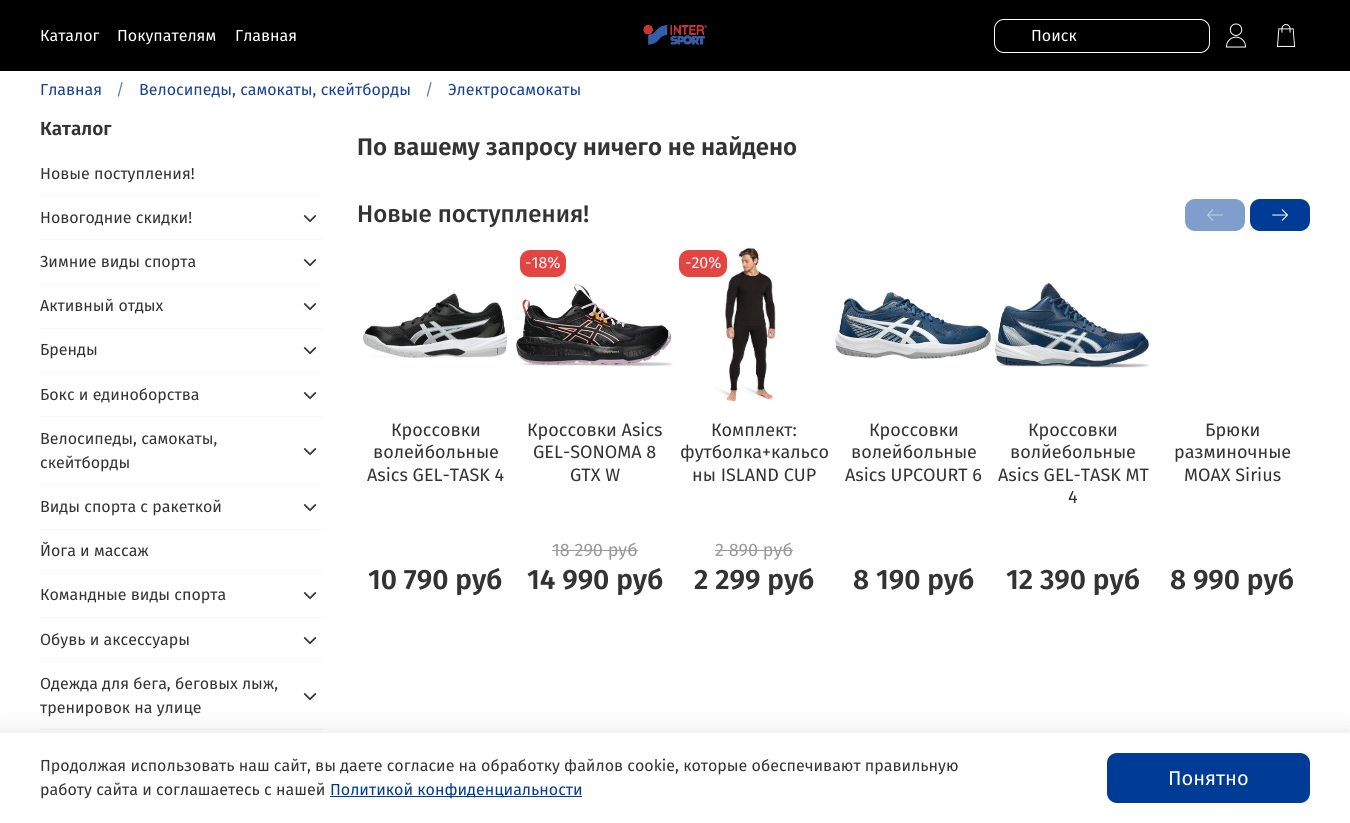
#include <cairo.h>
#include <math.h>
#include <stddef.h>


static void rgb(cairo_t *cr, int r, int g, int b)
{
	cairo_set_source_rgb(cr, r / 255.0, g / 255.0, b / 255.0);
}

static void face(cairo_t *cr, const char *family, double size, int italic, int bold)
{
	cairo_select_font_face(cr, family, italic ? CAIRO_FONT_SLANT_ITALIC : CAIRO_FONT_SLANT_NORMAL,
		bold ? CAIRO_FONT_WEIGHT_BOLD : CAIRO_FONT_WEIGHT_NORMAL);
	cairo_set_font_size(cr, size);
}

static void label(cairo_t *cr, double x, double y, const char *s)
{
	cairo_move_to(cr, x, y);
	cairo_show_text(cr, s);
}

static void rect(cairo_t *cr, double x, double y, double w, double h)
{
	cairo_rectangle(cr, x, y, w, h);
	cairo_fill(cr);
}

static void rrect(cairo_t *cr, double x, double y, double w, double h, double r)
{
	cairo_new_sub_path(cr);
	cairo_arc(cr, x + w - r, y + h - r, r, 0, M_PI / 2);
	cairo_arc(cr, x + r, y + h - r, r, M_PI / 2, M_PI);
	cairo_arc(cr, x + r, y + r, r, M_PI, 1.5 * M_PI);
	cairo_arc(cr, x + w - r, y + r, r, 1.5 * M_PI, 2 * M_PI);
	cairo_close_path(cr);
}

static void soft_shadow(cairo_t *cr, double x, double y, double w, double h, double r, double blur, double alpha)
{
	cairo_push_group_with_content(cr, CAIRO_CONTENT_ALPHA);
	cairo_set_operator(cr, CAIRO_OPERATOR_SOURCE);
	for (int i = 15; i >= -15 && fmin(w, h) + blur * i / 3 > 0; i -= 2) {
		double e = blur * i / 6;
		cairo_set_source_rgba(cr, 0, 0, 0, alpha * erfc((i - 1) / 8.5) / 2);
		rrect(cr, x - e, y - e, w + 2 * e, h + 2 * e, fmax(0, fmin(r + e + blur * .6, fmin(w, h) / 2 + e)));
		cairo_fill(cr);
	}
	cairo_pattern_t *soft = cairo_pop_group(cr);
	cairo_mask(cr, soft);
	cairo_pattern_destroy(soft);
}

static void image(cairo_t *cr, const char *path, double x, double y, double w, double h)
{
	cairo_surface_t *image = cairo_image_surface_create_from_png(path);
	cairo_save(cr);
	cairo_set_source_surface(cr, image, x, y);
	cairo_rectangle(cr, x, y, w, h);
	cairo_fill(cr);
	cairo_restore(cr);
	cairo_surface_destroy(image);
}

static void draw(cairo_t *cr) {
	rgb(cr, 255, 255, 255);
	cairo_paint(cr);
	rgb(cr, 0, 0, 0);
	rect(cr, 0, 0, 1350, 71);
	face(cr, "Fira Sans", 16, 0, 0);
	rgb(cr, 255, 255, 255);
	label(cr, 40, 41, "Каталог");
	label(cr, 117, 41, "Покупателям");
	label(cr, 235, 41, "Главная");
	image(cr, "image0.png", 643, 24, 64, 21);
	rrect(cr, 994.5, 19.5, 215, 33, 9.5);
	cairo_set_line_width(cr, 1);
	cairo_stroke(cr);
	label(cr, 1031, 41, "Поиск");
	image(cr, "image1.png", 1226, 23, 20, 25);
	image(cr, "image2.png", 1277, 24, 18, 23);
	rgb(cr, 22, 66, 150);
	label(cr, 40, 95, "Главная");
	rgb(cr, 92, 123, 182);
	label(cr, 116, 95, "/");
	rgb(cr, 22, 66, 150);
	label(cr, 139, 95, "Велосипеды, самокаты, скейтборды");
	rgb(cr, 92, 123, 182);
	label(cr, 425, 95, "/");
	rgb(cr, 22, 66, 150);
	label(cr, 448, 95, "Электросамокаты");
	face(cr, "Fira Sans SemiBold", 19, 0, 0);
	rgb(cr, 51, 51, 51);
	label(cr, 40, 135, "Каталог");
	rgb(cr, 247, 247, 247);
	rect(cr, 40, 195, 282, 1);
	face(cr, "Fira Sans", 16, 0, 0);
	rgb(cr, 51, 51, 51);
	label(cr, 40, 179, "Новые поступления!");
	rgb(cr, 247, 247, 247);
	rect(cr, 40, 239, 282, 1);
	rgb(cr, 51, 51, 51);
	label(cr, 40, 223, "Новогодние скидки!");
	image(cr, "image3.png", 303, 215, 14, 8);
	rgb(cr, 247, 247, 247);
	rect(cr, 40, 284, 282, 1);
	rgb(cr, 51, 51, 51);
	label(cr, 40, 267, "Зимние виды спорта");
	image(cr, "image3.png", 303, 259, 14, 8);
	rgb(cr, 247, 247, 247);
	rect(cr, 40, 328, 282, 1);
	rgb(cr, 51, 51, 51);
	label(cr, 40, 311, "Активный отдых");
	image(cr, "image3.png", 303, 303, 14, 8);
	rgb(cr, 247, 247, 247);
	rect(cr, 40, 372, 282, 1);
	rgb(cr, 51, 51, 51);
	label(cr, 40, 355, "Бренды");
	image(cr, "image3.png", 303, 347, 14, 8);
	rgb(cr, 247, 247, 247);
	rect(cr, 40, 416, 282, 1);
	rgb(cr, 51, 51, 51);
	label(cr, 40, 400, "Бокс и единоборства");
	image(cr, "image3.png", 303, 392, 14, 8);
	rgb(cr, 247, 247, 247);
	rect(cr, 40, 484, 282, 1);
	rgb(cr, 51, 51, 51);
	label(cr, 40, 444, "Велосипеды, самокаты,");
	label(cr, 40, 468, "скейтборды");
	image(cr, "image3.png", 303, 448, 14, 8);
	rgb(cr, 247, 247, 247);
	rect(cr, 40, 529, 282, 1);
	rgb(cr, 51, 51, 51);
	label(cr, 40, 512, "Виды спорта с ракеткой");
	image(cr, "image3.png", 303, 504, 14, 8);
	rgb(cr, 247, 247, 247);
	rect(cr, 40, 573, 282, 1);
	rgb(cr, 51, 51, 51);
	label(cr, 40, 556, "Йога и массаж");
	rgb(cr, 247, 247, 247);
	rect(cr, 40, 617, 282, 1);
	rgb(cr, 51, 51, 51);
	label(cr, 40, 600, "Командные виды спорта");
	image(cr, "image3.png", 303, 592, 14, 8);
	rgb(cr, 247, 247, 247);
	rect(cr, 40, 661, 282, 1);
	rgb(cr, 51, 51, 51);
	label(cr, 40, 645, "Обувь и аксессуары");
	image(cr, "image3.png", 303, 637, 14, 8);
	rgb(cr, 247, 247, 247);
	rect(cr, 40, 729, 282, 1);
	rgb(cr, 51, 51, 51);
	label(cr, 40, 689, "Одежда для бега, беговых лыж,");
	label(cr, 40, 713, "тренировок на улице");
	image(cr, "image3.png", 303, 693, 14, 8);
	face(cr, "Fira Sans SemiBold", 24, 0, 0);
	label(cr, 357, 155, "По вашему запросу ничего не найдено");
	face(cr, "Fira Sans Medium", 24, 0, 0);
	label(cr, 357, 222, "Новые поступления!");
	rgb(cr, 128, 158, 203);
	rrect(cr, 1185, 199, 60, 32, 10);
	cairo_fill(cr);
	image(cr, "image4.png", 1207, 209, 16, 12);
	rgb(cr, 0, 60, 150);
	rrect(cr, 1250, 199, 60, 32, 10);
	cairo_fill(cr);
	image(cr, "image5.png", 1272, 209, 16, 12);
	image(cr, "image6.png", 363, 293, 145, 65);
	face(cr, "Fira Sans", 18, 0, 0);
	rgb(cr, 51, 51, 51);
	label(cr, 391, 436, "Кроссовки");
	label(cr, 373, 458, "волейбольные");
	label(cr, 367, 481, "Asics GEL-TASK 4");
	face(cr, "Fira Sans SemiBold", 28, 0, 0);
	label(cr, 368, 589, "10 790 руб");
	rgb(cr, 228, 69, 66);
	rrect(cr, 520, 250, 46, 27, 10);
	cairo_fill(cr);
	face(cr, "Fira Sans", 16, 0, 0);
	rgb(cr, 255, 255, 255);
	label(cr, 525, 268, "-18%");
	image(cr, "image7.png", 516, 283, 157, 84);
	face(cr, "Fira Sans", 18, 0, 0);
	rgb(cr, 51, 51, 51);
	label(cr, 527, 436, "Кроссовки Asics");
	label(cr, 533, 458, "GEL-SONOMA 8");
	label(cr, 570, 481, "GTX W");
	rgb(cr, 153, 153, 153);
	label(cr, 552, 556, "18 290 руб");
	rect(cr, 552, 550, 86, 1);
	face(cr, "Fira Sans SemiBold", 28, 0, 0);
	rgb(cr, 51, 51, 51);
	label(cr, 527, 589, "14 990 руб");
	image(cr, "image8.png", 715, 247, 61, 155);
	rgb(cr, 228, 69, 66);
	rrect(cr, 679, 250, 48, 27, 10);
	cairo_fill(cr);
	face(cr, "Fira Sans", 16, 0, 0);
	rgb(cr, 255, 255, 255);
	label(cr, 685, 268, "-20%");
	face(cr, "Fira Sans", 18, 0, 0);
	rgb(cr, 51, 51, 51);
	label(cr, 711, 436, "Комплект:");
	label(cr, 680, 458, "футболка+кальсо");
	label(cr, 692, 481, "ны ISLAND CUP");
	rgb(cr, 153, 153, 153);
	label(cr, 715, 556, "2 890 руб");
	rect(cr, 715, 550, 78, 1);
	face(cr, "Fira Sans SemiBold", 28, 0, 0);
	rgb(cr, 51, 51, 51);
	label(cr, 694, 589, "2 299 руб");
	image(cr, "image9.png", 835, 292, 156, 68);
	face(cr, "Fira Sans", 18, 0, 0);
	label(cr, 869, 436, "Кроссовки");
	label(cr, 851, 458, "волейбольные");
	label(cr, 845, 481, "Asics UPCOURT 6");
	face(cr, "Fira Sans SemiBold", 28, 0, 0);
	label(cr, 853, 589, "8 190 руб");
	image(cr, "image10.png", 994, 282, 156, 86);
	face(cr, "Fira Sans", 18, 0, 0);
	label(cr, 1028, 436, "Кроссовки");
	label(cr, 1010, 458, "волйебольные");
	label(cr, 998, 481, "Asics GEL-TASK MT");
	label(cr, 1068, 503, "4");
	face(cr, "Fira Sans SemiBold", 28, 0, 0);
	label(cr, 1006, 589, "12 390 руб");
	face(cr, "Fira Sans", 18, 0, 0);
	label(cr, 1205, 436, "Брюки");
	label(cr, 1174, 458, "разминочные");
	label(cr, 1184, 481, "MOAX Sirius");
	face(cr, "Fira Sans SemiBold", 28, 0, 0);
	label(cr, 1170, 589, "8 990 руб");
	rgb(cr, 0, 0, 0);
	soft_shadow(cr, -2, 730, 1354, 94, 0, 11.5, 0.09);
	rgb(cr, 255, 255, 255);
	rect(cr, 0, 733, 1350, 90);
	face(cr, "Fira Sans", 16, 0, 0);
	rgb(cr, 51, 51, 51);
	label(cr, 40, 771, "Продолжая использовать наш сайт, вы даете согласие на обработку файлов cookie, которые обеспечивают правильную");
	label(cr, 40, 795, "работу сайта и соглашаетесь с нашей");
	rgb(cr, 0, 60, 150);
	rect(cr, 330, 796, 252, 1);
	label(cr, 330, 795, "Политикой конфиденциальности");
	rrect(cr, 1107, 753, 203, 50, 10);
	cairo_fill(cr);
	face(cr, "Fira Sans", 20, 0, 0);
	rgb(cr, 255, 255, 255);
	label(cr, 1168, 785, "Понятно");
}

int main(void) {
	cairo_surface_t *surface = cairo_image_surface_create(CAIRO_FORMAT_RGB24, 1350, 823);
	cairo_t *cr = cairo_create(surface);
	cairo_font_options_t *options = cairo_font_options_create();
	cairo_font_options_set_hint_metrics(options, CAIRO_HINT_METRICS_OFF);
	cairo_font_options_set_hint_style(options, CAIRO_HINT_STYLE_NONE);
	cairo_set_font_options(cr, options);
	cairo_set_miter_limit(cr, 4);
	draw(cr);
	cairo_surface_write_to_png(surface, "render.png");
	cairo_font_options_destroy(options);
	cairo_destroy(cr);
	cairo_surface_destroy(surface);
	return 0;
}
